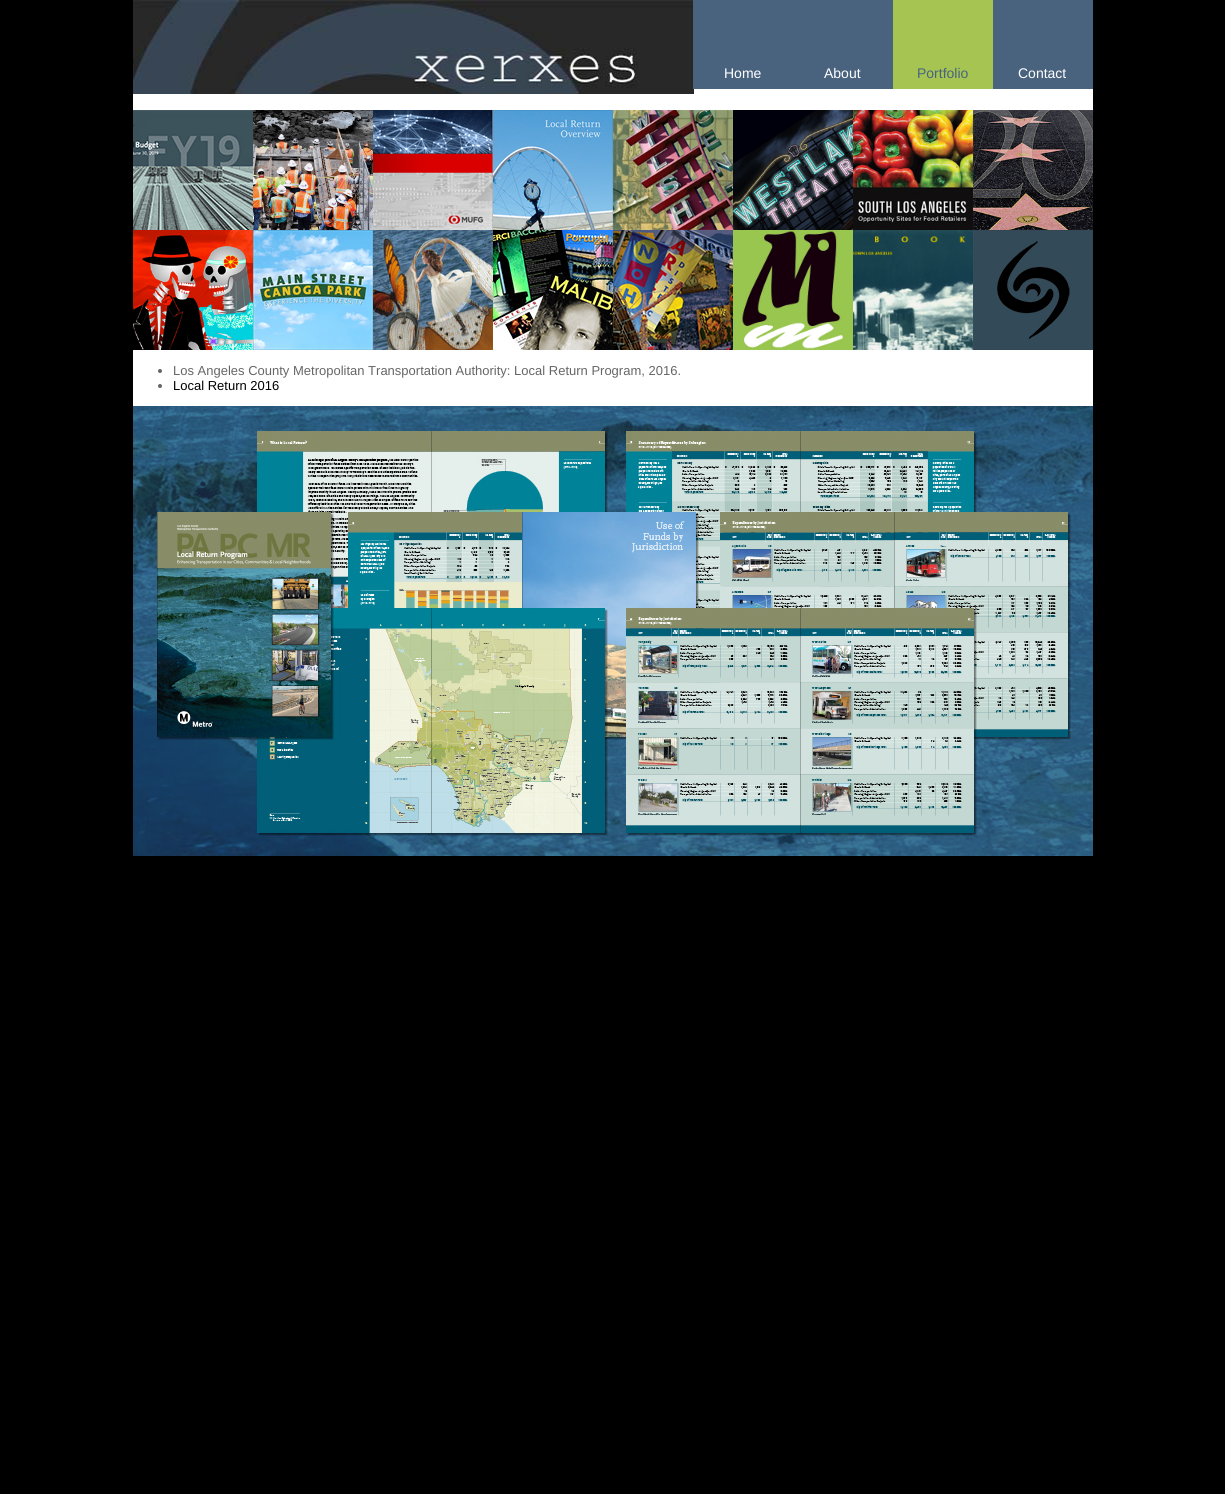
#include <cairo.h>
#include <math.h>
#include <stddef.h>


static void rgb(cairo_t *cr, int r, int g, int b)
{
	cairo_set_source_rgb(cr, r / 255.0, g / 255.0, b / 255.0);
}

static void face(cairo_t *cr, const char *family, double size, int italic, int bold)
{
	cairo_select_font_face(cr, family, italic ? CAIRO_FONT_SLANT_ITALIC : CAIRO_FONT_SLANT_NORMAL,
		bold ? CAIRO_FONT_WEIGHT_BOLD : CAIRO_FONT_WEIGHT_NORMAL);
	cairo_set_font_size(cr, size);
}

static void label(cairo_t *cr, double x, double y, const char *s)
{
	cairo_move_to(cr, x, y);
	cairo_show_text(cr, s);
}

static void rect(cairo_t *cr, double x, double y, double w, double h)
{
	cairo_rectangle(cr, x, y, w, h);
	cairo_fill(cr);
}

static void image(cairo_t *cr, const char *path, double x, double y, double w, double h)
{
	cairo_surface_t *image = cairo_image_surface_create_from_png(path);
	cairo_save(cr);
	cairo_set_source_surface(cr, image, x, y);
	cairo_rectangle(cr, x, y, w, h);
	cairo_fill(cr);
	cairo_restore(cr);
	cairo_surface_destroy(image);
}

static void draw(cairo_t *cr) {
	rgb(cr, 0, 0, 0);
	cairo_paint(cr);
	rgb(cr, 255, 255, 255);
	rect(cr, 133, 89, 960, 317);
	image(cr, "image0.png", 133, 0, 561, 94);
	rgb(cr, 73, 99, 126);
	rect(cr, 693, 0, 200, 89);
	face(cr, "Liberation Sans", 14, 0, 0);
	rgb(cr, 255, 255, 255);
	label(cr, 724, 78, "Home");
	label(cr, 824, 78, "About");
	rgb(cr, 165, 196, 81);
	rect(cr, 893, 0, 100, 89);
	rgb(cr, 73, 99, 126);
	label(cr, 917, 78, "Portfolio");
	rect(cr, 993, 0, 100, 89);
	rgb(cr, 255, 255, 255);
	label(cr, 1018, 78, "Contact");
	image(cr, "image1.png", 133, 110, 120, 120);
	image(cr, "image2.png", 253, 110, 120, 120);
	image(cr, "image3.png", 373, 110, 120, 120);
	image(cr, "image4.png", 493, 110, 120, 120);
	image(cr, "image5.png", 613, 110, 120, 120);
	image(cr, "image6.png", 733, 110, 120, 120);
	image(cr, "image7.png", 853, 110, 120, 120);
	image(cr, "image8.png", 973, 110, 120, 120);
	image(cr, "image9.png", 133, 230, 120, 120);
	image(cr, "image10.png", 253, 230, 120, 120);
	image(cr, "image11.png", 373, 230, 120, 120);
	image(cr, "image12.png", 493, 230, 120, 120);
	image(cr, "image13.png", 613, 230, 120, 120);
	image(cr, "image14.png", 733, 230, 120, 120);
	image(cr, "image15.png", 853, 230, 120, 120);
	image(cr, "image16.png", 973, 230, 120, 120);
	rgb(cr, 102, 102, 102);
	cairo_arc(cr, 160, 371, 2, 0, 2 * M_PI);
	cairo_fill(cr);
	face(cr, "Liberation Sans", 13, 0, 0);
	label(cr, 173, 375, "Los Angeles County Metropolitan Transportation Authority: Local Return Program, 2016.");
	cairo_new_path(cr);
	cairo_arc(cr, 160, 386, 2, 0, 2 * M_PI);
	cairo_fill(cr);
	rgb(cr, 0, 0, 0);
	label(cr, 173, 390, "Local Return 2016");
	image(cr, "image17.png", 133, 406, 960, 450);
}

int main(void) {
	cairo_surface_t *surface = cairo_image_surface_create(CAIRO_FORMAT_RGB24, 1225, 1494);
	cairo_t *cr = cairo_create(surface);
	cairo_font_options_t *options = cairo_font_options_create();
	cairo_font_options_set_hint_metrics(options, CAIRO_HINT_METRICS_OFF);
	cairo_font_options_set_hint_style(options, CAIRO_HINT_STYLE_NONE);
	cairo_set_font_options(cr, options);
	cairo_set_miter_limit(cr, 4);
	draw(cr);
	cairo_surface_write_to_png(surface, "render.png");
	cairo_font_options_destroy(options);
	cairo_destroy(cr);
	cairo_surface_destroy(surface);
	return 0;
}
